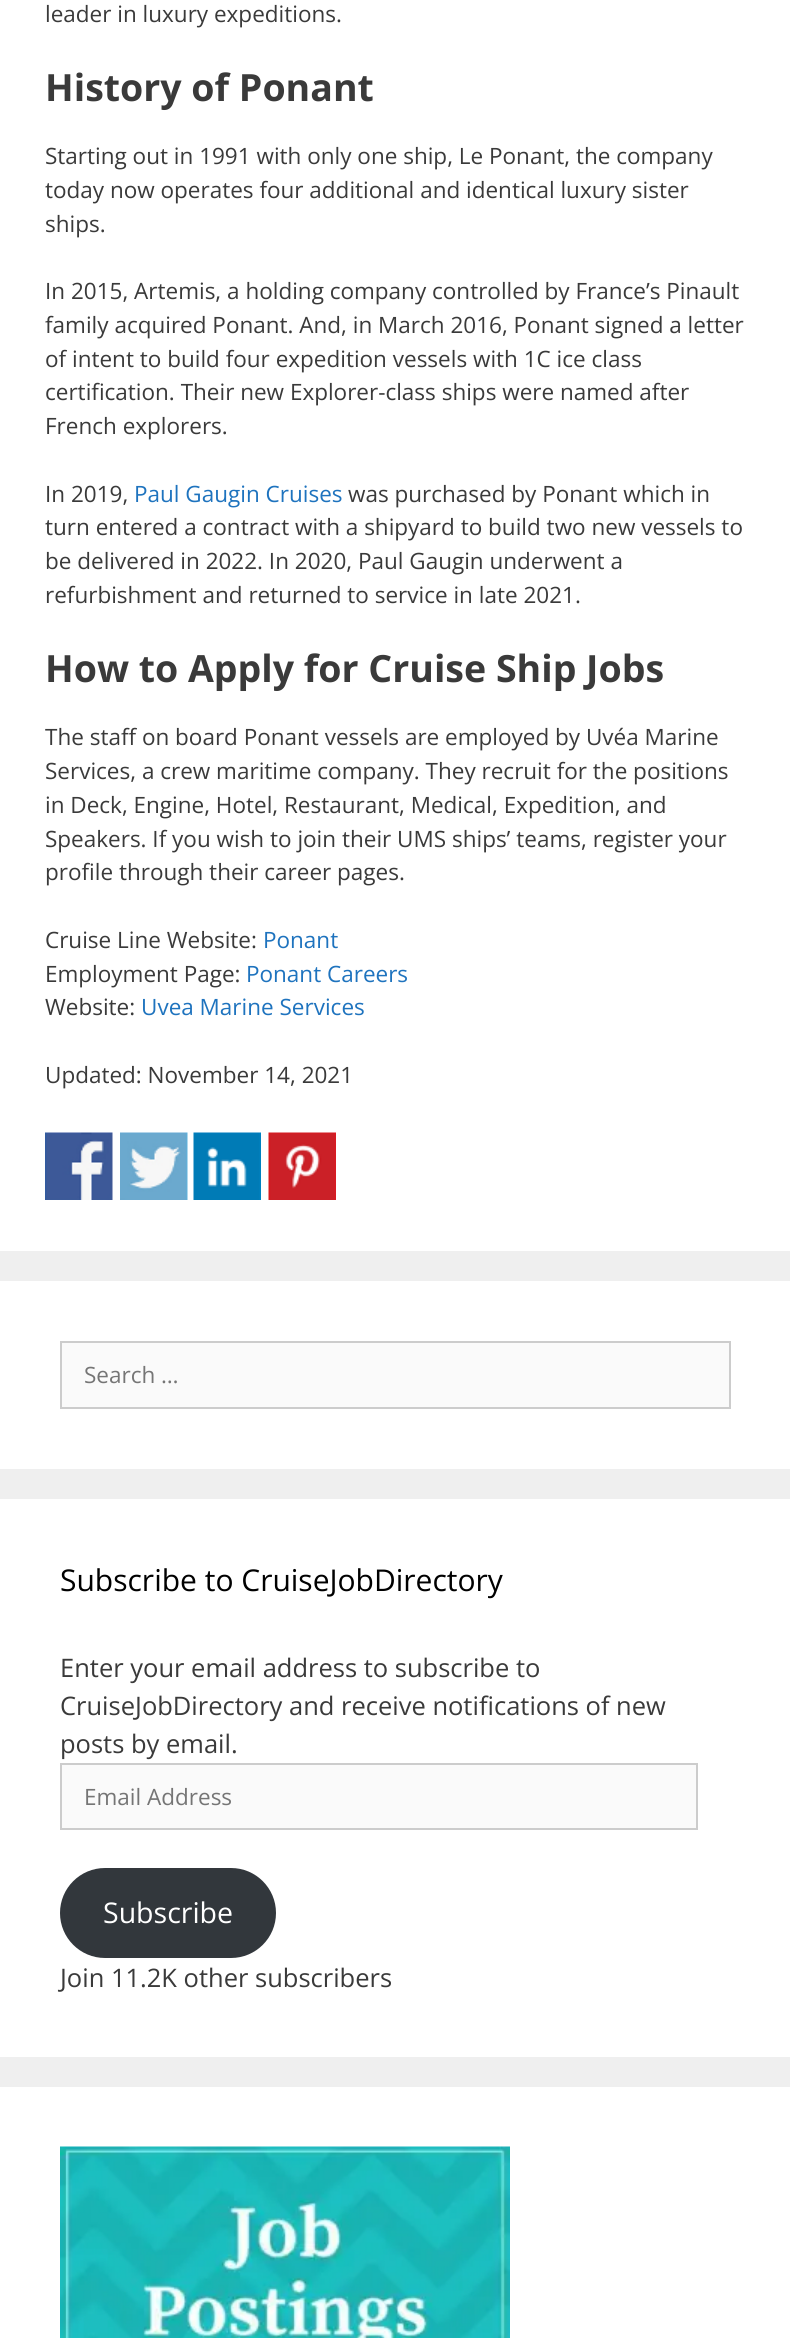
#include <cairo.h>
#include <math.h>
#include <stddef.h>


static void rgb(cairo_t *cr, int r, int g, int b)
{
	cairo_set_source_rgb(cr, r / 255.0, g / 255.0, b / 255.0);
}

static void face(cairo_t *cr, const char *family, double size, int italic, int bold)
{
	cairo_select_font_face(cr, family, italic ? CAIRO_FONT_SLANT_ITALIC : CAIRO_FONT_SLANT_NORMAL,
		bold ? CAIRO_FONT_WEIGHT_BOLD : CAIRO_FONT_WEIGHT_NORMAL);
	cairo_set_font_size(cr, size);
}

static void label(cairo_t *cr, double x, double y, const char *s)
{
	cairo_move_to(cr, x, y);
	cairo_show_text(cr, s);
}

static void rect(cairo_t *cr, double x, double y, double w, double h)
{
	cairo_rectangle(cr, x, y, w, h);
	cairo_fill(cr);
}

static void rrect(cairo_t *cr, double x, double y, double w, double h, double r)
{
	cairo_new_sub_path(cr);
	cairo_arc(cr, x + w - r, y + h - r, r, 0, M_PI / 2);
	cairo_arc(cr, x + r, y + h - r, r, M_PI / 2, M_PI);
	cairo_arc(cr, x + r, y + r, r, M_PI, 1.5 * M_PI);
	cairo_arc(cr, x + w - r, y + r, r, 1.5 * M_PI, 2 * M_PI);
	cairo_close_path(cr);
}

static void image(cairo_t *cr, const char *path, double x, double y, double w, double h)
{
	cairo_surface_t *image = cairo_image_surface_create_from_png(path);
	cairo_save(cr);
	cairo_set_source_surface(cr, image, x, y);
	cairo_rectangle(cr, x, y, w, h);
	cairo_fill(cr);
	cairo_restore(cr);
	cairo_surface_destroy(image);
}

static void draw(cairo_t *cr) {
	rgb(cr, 239, 239, 239);
	cairo_paint(cr);
	rgb(cr, 255, 255, 255);
	rect(cr, 0, 0, 790, 1251);
	face(cr, "Open Sans", 22.5, 0, 0);
	rgb(cr, 58, 58, 58);
	label(cr, 45, 22, "leader in luxury expeditions.");
	face(cr, "Open Sans", 37.5, 0, 1);
	label(cr, 45, 101, "History of Ponant");
	face(cr, "Open Sans", 22.5, 0, 0);
	label(cr, 45, 164, "Starting out in 1991 with only one ship, Le Ponant, the company");
	label(cr, 45, 198, "today now operates four additional and identical luxury sister");
	label(cr, 45, 232, "ships.");
	label(cr, 45, 299, "In 2015, Artemis, a holding company controlled by France’s Pinault");
	label(cr, 45, 333, "family acquired Ponant. And, in March 2016, Ponant signed a letter");
	label(cr, 45, 367, "of intent to build four expedition vessels with 1C ice class");
	label(cr, 45, 400, "certification. Their new Explorer-class ships were named after");
	label(cr, 45, 434, "French explorers.");
	label(cr, 45, 502, "In 2019,");
	rgb(cr, 30, 115, 190);
	label(cr, 134, 502, "Paul Gaugin Cruises");
	rgb(cr, 58, 58, 58);
	label(cr, 348, 502, "was purchased by Ponant which in");
	label(cr, 45, 535, "turn entered a contract with a shipyard to build two new vessels to");
	label(cr, 45, 569, "be delivered in 2022. In 2020, Paul Gaugin underwent a");
	label(cr, 45, 603, "refurbishment and returned to service in late 2021.");
	face(cr, "Open Sans", 37.5, 0, 1);
	label(cr, 45, 682, "How to Apply for Cruise Ship Jobs");
	face(cr, "Open Sans", 22.5, 0, 0);
	label(cr, 45, 745, "The staff on board Ponant vessels are employed by Uvéa Marine");
	label(cr, 45, 779, "Services, a crew maritime company. They recruit for the positions");
	label(cr, 45, 813, "in Deck, Engine, Hotel, Restaurant, Medical, Expedition, and");
	label(cr, 45, 847, "Speakers. If you wish to join their UMS ships’ teams, register your");
	label(cr, 45, 880, "profile through their career pages.");
	label(cr, 45, 948, "Cruise Line Website:");
	rgb(cr, 30, 115, 190);
	label(cr, 263, 948, "Ponant");
	rgb(cr, 58, 58, 58);
	label(cr, 45, 982, "Employment Page:");
	rgb(cr, 30, 115, 190);
	label(cr, 246, 982, "Ponant Careers");
	rgb(cr, 58, 58, 58);
	label(cr, 45, 1015, "Website:");
	rgb(cr, 30, 115, 190);
	label(cr, 141, 1015, "Uvea Marine Services");
	rgb(cr, 58, 58, 58);
	label(cr, 45, 1083, "Updated: November 14, 2021");
	image(cr, "image0.png", 45, 1132, 68, 68);
	image(cr, "image1.png", 120, 1132, 68, 68);
	image(cr, "image2.png", 193, 1132, 68, 68);
	image(cr, "image3.png", 268, 1132, 68, 68);
	rgb(cr, 255, 255, 255);
	rect(cr, 0, 1281, 790, 188);
	rgb(cr, 250, 250, 250);
	cairo_rectangle(cr, 61, 1342, 669, 66);
	cairo_fill_preserve(cr);
	rgb(cr, 204, 204, 204);
	cairo_stroke(cr);
	rgb(cr, 117, 117, 117);
	label(cr, 84, 1383, "Search …");
	rgb(cr, 255, 255, 255);
	rect(cr, 0, 1499, 790, 558);
	face(cr, "Open Sans", 30, 0, 0);
	rgb(cr, 0, 0, 0);
	label(cr, 60, 1591, "Subscribe to CruiseJobDirectory");
	face(cr, "Open Sans", 25.5, 0, 0);
	rgb(cr, 58, 58, 58);
	label(cr, 60, 1677, "Enter your email address to subscribe to");
	label(cr, 60, 1715, "CruiseJobDirectory and receive notifications of new");
	label(cr, 60, 1753, "posts by email.");
	rgb(cr, 250, 250, 250);
	cairo_rectangle(cr, 61, 1764, 636, 65);
	cairo_fill_preserve(cr);
	rgb(cr, 204, 204, 204);
	cairo_stroke(cr);
	face(cr, "Open Sans", 22.5, 0, 0);
	rgb(cr, 117, 117, 117);
	label(cr, 84, 1805, "Email Address");
	rgb(cr, 50, 55, 60);
	rrect(cr, 60, 1868, 216, 90, 45);
	cairo_fill(cr);
	face(cr, "Open Sans", 28.5, 0, 0);
	rgb(cr, 255, 255, 255);
	label(cr, 103, 1923, "Subscribe");
	face(cr, "Open Sans", 25.5, 0, 0);
	rgb(cr, 58, 58, 58);
	label(cr, 60, 1987, "Join 11.2K other subscribers");
	rgb(cr, 255, 255, 255);
	rect(cr, 0, 2087, 790, 251);
	image(cr, "image4.png", 60, 2146, 450, 192);
}

int main(void) {
	cairo_surface_t *surface = cairo_image_surface_create(CAIRO_FORMAT_RGB24, 790, 2338);
	cairo_t *cr = cairo_create(surface);
	cairo_font_options_t *options = cairo_font_options_create();
	cairo_font_options_set_hint_metrics(options, CAIRO_HINT_METRICS_OFF);
	cairo_font_options_set_hint_style(options, CAIRO_HINT_STYLE_NONE);
	cairo_set_font_options(cr, options);
	cairo_set_miter_limit(cr, 4);
	draw(cr);
	cairo_surface_write_to_png(surface, "render.png");
	cairo_font_options_destroy(options);
	cairo_destroy(cr);
	cairo_surface_destroy(surface);
	return 0;
}
